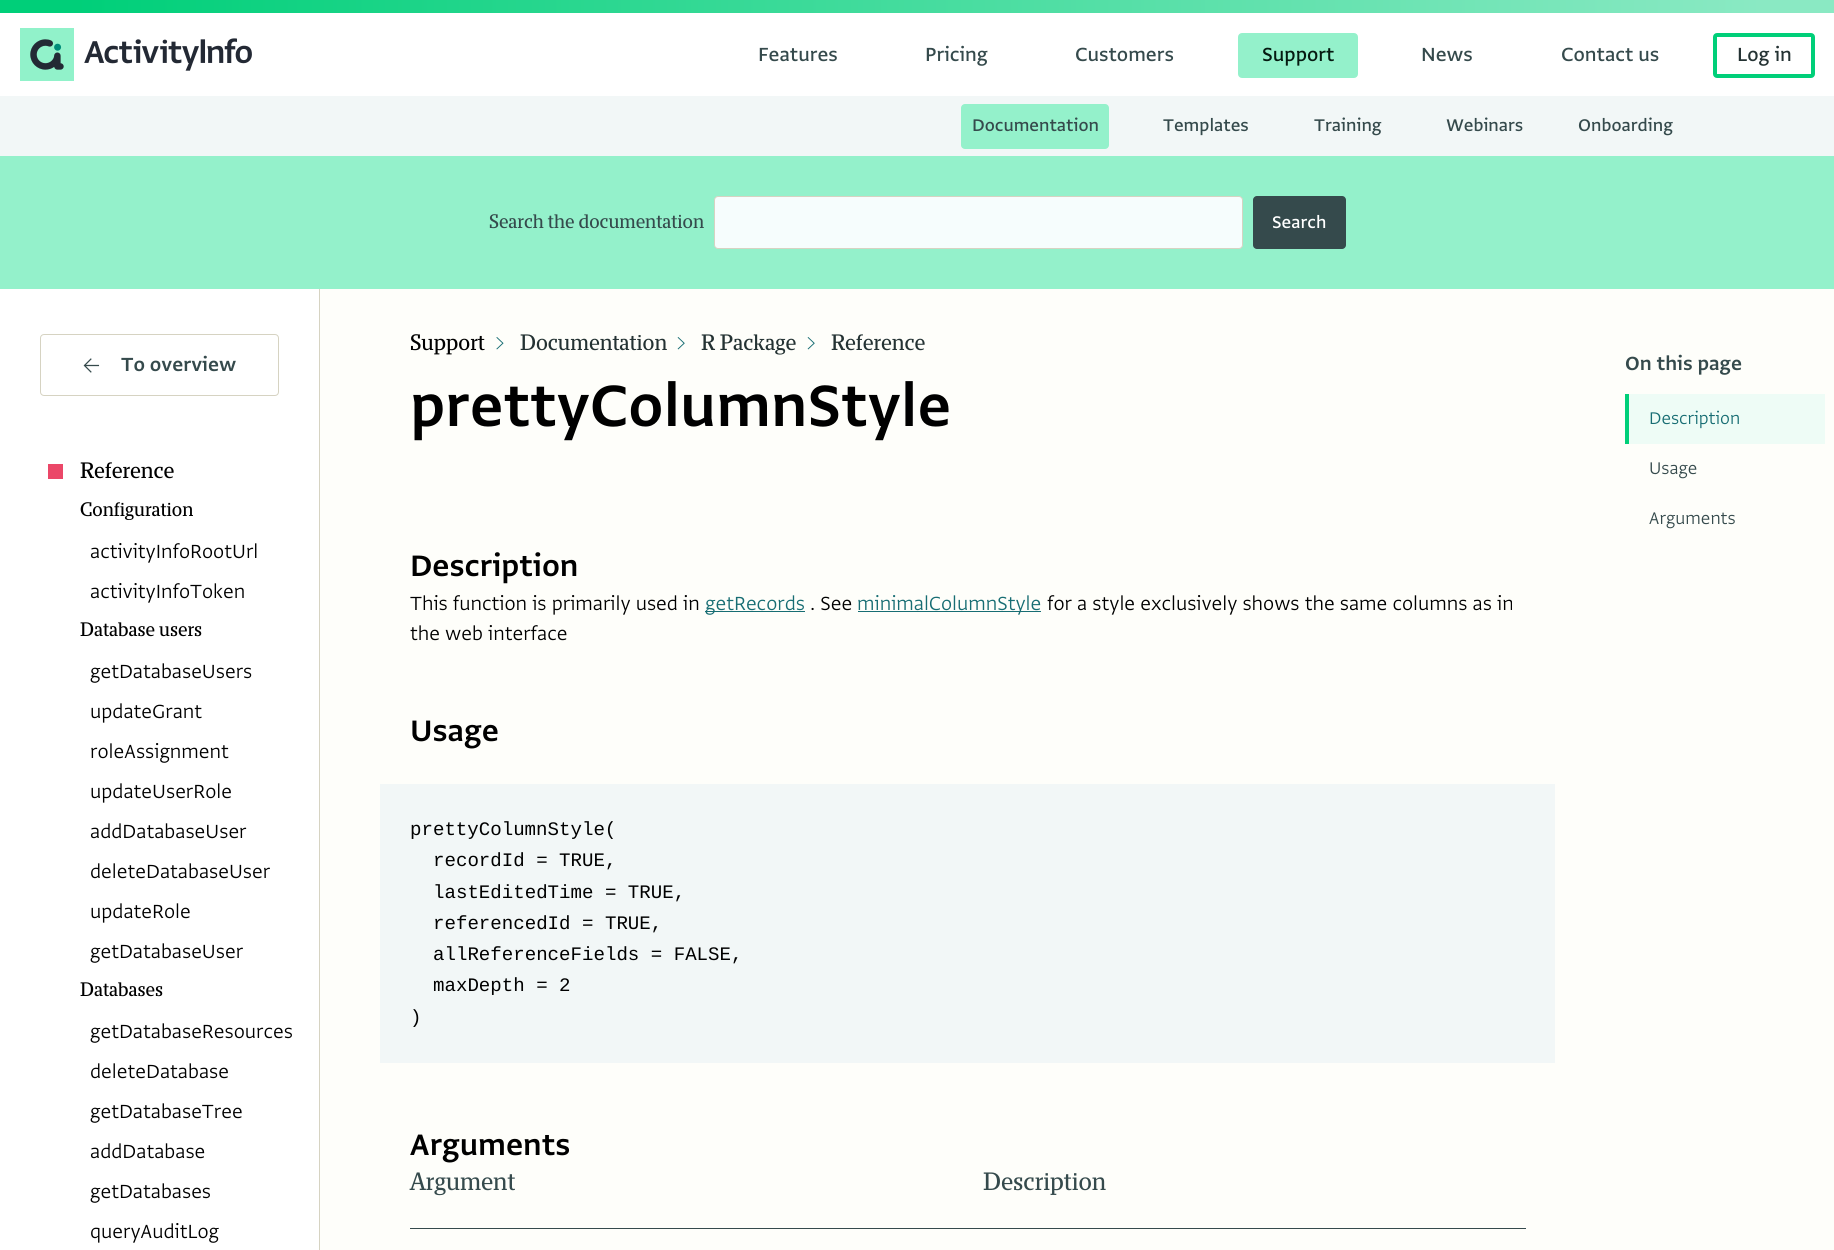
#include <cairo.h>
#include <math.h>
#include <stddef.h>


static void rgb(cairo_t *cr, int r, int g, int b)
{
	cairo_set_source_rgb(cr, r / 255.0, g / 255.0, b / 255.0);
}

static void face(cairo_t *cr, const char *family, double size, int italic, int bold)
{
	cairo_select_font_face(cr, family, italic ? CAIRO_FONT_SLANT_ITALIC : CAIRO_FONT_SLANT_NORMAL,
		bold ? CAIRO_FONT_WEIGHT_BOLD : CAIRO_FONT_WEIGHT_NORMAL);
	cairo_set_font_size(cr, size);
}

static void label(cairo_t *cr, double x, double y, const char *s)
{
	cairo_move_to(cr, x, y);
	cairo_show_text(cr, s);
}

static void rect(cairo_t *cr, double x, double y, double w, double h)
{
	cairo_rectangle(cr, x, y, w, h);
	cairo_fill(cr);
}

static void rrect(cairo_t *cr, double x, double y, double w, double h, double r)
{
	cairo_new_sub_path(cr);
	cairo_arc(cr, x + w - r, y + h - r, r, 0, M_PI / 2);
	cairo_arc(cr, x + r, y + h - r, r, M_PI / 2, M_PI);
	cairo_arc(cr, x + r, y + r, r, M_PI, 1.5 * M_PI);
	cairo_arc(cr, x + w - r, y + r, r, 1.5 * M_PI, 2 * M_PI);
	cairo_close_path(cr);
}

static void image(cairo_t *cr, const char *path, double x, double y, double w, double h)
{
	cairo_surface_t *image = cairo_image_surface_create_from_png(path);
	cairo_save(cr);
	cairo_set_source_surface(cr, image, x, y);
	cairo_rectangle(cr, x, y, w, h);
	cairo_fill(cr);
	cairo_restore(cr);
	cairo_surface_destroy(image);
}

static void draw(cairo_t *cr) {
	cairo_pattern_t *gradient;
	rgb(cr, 254, 254, 250);
	cairo_paint(cr);
	gradient = cairo_pattern_create_linear(0, 6.3, 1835, 6.2);
	cairo_pattern_add_color_stop_rgba(gradient, 0.04, 0, 0.812, 0.475, 1);
	cairo_pattern_add_color_stop_rgba(gradient, 0.96, 0.541, 0.914, 0.765, 1);
	cairo_set_source(cr, gradient);
	cairo_pattern_destroy(gradient);
	rect(cr, 0, 0, 1834, 13);
	rgb(cr, 255, 255, 255);
	rect(cr, 0, 13, 1834, 83);
	image(cr, "image0.png", 20, 28, 232, 53);
	face(cr, "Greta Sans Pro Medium", 22.5, 0, 0);
	rgb(cr, 53, 74, 76);
	label(cr, 758, 61, "Features");
	label(cr, 925, 61, "Pricing");
	label(cr, 1075, 61, "Customers");
	rgb(cr, 148, 241, 203);
	rrect(cr, 1240, 35, 116, 41, 2);
	cairo_fill_preserve(cr);
	cairo_set_line_width(cr, 4);
	cairo_stroke(cr);
	rgb(cr, 5, 26, 17);
	label(cr, 1262, 61, "Support");
	rgb(cr, 53, 74, 76);
	label(cr, 1421, 61, "News");
	label(cr, 1561, 61, "Contact us");
	rrect(cr, 1715, 35, 98, 41, 2);
	rgb(cr, 0, 207, 121);
	cairo_stroke(cr);
	rgb(cr, 36, 50, 51);
	label(cr, 1737, 61, "Log in");
	rgb(cr, 242, 247, 247);
	rect(cr, 0, 96, 1834, 60);
	rgb(cr, 148, 241, 203);
	rrect(cr, 961, 104, 148, 45, 4);
	cairo_fill(cr);
	face(cr, "Greta Sans Pro Medium", 20, 0, 0);
	rgb(cr, 53, 74, 76);
	label(cr, 972, 131, "Documentation");
	label(cr, 1163, 131, "Templates");
	label(cr, 1314, 131, "Training");
	label(cr, 1446, 131, "Webinars");
	label(cr, 1578, 131, "Onboarding");
	rgb(cr, 148, 241, 203);
	rect(cr, 0, 156, 1834, 133);
	face(cr, "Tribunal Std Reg", 17.5, 0, 0);
	rgb(cr, 53, 74, 76);
	label(cr, 489, 228, "Search the documentation");
	rgb(cr, 246, 253, 253);
	rrect(cr, 714.5, 196.5, 528, 52, 3.5);
	cairo_fill_preserve(cr);
	rgb(cr, 214, 211, 194);
	cairo_set_line_width(cr, 1);
	cairo_stroke(cr);
	rgb(cr, 53, 74, 76);
	rrect(cr, 1253, 196, 93, 53, 4);
	cairo_fill(cr);
	face(cr, "Greta Sans Pro Medium", 20, 0, 0);
	rgb(cr, 255, 255, 255);
	label(cr, 1272, 228, "Search");
	face(cr, "Tribunal Std Reg", 20, 0, 0);
	rgb(cr, 0, 0, 0);
	label(cr, 410, 350, "Support");
	image(cr, "image1.png", 496, 337, 8, 13);
	rgb(cr, 36, 50, 51);
	label(cr, 520, 350, "Documentation");
	image(cr, "image2.png", 677, 337, 8, 13);
	label(cr, 701, 350, "R Package");
	image(cr, "image2.png", 807, 337, 8, 13);
	label(cr, 831, 350, "Reference");
	rgb(cr, 255, 255, 255);
	rect(cr, 0, 289, 319, 961);
	rgb(cr, 214, 211, 194);
	rect(cr, 319, 289, 1, 961);
	rrect(cr, 40.5, 334.5, 238, 61, 3.5);
	cairo_stroke(cr);
	image(cr, "image3.png", 83, 358, 17, 15);
	face(cr, "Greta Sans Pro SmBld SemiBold", 22.5, 0, 0);
	rgb(cr, 53, 74, 76);
	label(cr, 121, 371, "To overview");
	rgb(cr, 235, 71, 104);
	rect(cr, 48, 464, 15, 15);
	face(cr, "Tribunal Std Reg", 20, 0, 0);
	rgb(cr, 0, 0, 0);
	label(cr, 80, 478, "Reference");
	face(cr, "Tribunal Std Reg", 17.5, 0, 0);
	label(cr, 80, 516, "Configuration");
	face(cr, "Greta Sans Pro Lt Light", 22.5, 0, 0);
	label(cr, 90, 558, "activityInfoRootUrl");
	label(cr, 90, 598, "activityInfoToken");
	face(cr, "Tribunal Std Reg", 17.5, 0, 0);
	label(cr, 80, 636, "Database users");
	face(cr, "Greta Sans Pro Lt Light", 22.5, 0, 0);
	label(cr, 90, 678, "getDatabaseUsers");
	label(cr, 90, 718, "updateGrant");
	label(cr, 90, 758, "roleAssignment");
	label(cr, 90, 798, "updateUserRole");
	label(cr, 90, 838, "addDatabaseUser");
	label(cr, 90, 878, "deleteDatabaseUser");
	label(cr, 90, 918, "updateRole");
	label(cr, 90, 958, "getDatabaseUser");
	face(cr, "Tribunal Std Reg", 17.5, 0, 0);
	label(cr, 80, 996, "Databases");
	face(cr, "Greta Sans Pro Lt Light", 22.5, 0, 0);
	label(cr, 90, 1038, "getDatabaseResources");
	label(cr, 90, 1078, "deleteDatabase");
	label(cr, 90, 1118, "getDatabaseTree");
	label(cr, 90, 1158, "addDatabase");
	label(cr, 90, 1198, "getDatabases");
	label(cr, 90, 1238, "queryAuditLog");
	face(cr, "Greta Sans Pro SmBld SemiBold", 68.75, 0, 0);
	label(cr, 410, 426, "prettyColumnStyle");
	face(cr, "Greta Sans Pro SmBld SemiBold", 22.5, 0, 0);
	rgb(cr, 53, 74, 76);
	label(cr, 1625, 370, "On this page");
	rgb(cr, 238, 252, 246);
	rect(cr, 1629, 394, 196, 50);
	rgb(cr, 0, 207, 121);
	rect(cr, 1625, 394, 4, 50);
	face(cr, "Greta Sans Pro Lt Light", 20, 0, 0);
	rgb(cr, 23, 109, 115);
	label(cr, 1649, 424, "Description");
	rgb(cr, 53, 74, 76);
	label(cr, 1649, 474, "Usage");
	label(cr, 1649, 524, "Arguments");
	face(cr, "Greta Sans Pro SmBld SemiBold", 35, 0, 0);
	rgb(cr, 0, 0, 0);
	label(cr, 410, 576, "Description");
	face(cr, "Greta Sans Pro Lt Light", 22.5, 0, 0);
	label(cr, 410, 610, "This function is primarily used in");
	rgb(cr, 23, 109, 115);
	rect(cr, 705, 611, 100, 1);
	label(cr, 705, 610, "getRecords");
	rgb(cr, 0, 0, 0);
	label(cr, 810, 610, ". See");
	rgb(cr, 23, 109, 115);
	rect(cr, 858, 611, 183, 1);
	label(cr, 857, 610, "minimalColumnStyle");
	rgb(cr, 0, 0, 0);
	label(cr, 1047, 610, "for a style exclusively shows the same columns as in");
	label(cr, 410, 640, "the web interface");
	face(cr, "Greta Sans Pro SmBld SemiBold", 35, 0, 0);
	label(cr, 410, 741, "Usage");
	rgb(cr, 242, 247, 247);
	rect(cr, 380, 784, 1175, 279);
	face(cr, "Liberation Mono", 19.1, 0, 0);
	rgb(cr, 0, 0, 0);
	label(cr, 410, 835, "prettyColumnStyle(");
	label(cr, 433, 866, "recordId = TRUE,");
	label(cr, 433, 898, "lastEditedTime = TRUE,");
	label(cr, 433, 929, "referencedId = TRUE,");
	label(cr, 433, 960, "allReferenceFields = FALSE,");
	label(cr, 433, 991, "maxDepth = 2");
	label(cr, 410, 1023, ")");
	face(cr, "Greta Sans Pro SmBld SemiBold", 35, 0, 0);
	label(cr, 410, 1155, "Arguments");
	rgb(cr, 53, 74, 76);
	rect(cr, 410, 1228, 1116, 1);
	face(cr, "Tribunal Std Reg", 22.5, 0, 0);
	label(cr, 410, 1190, "Argument");
	label(cr, 983, 1190, "Description");
}

int main(void) {
	cairo_surface_t *surface = cairo_image_surface_create(CAIRO_FORMAT_RGB24, 1834, 1250);
	cairo_t *cr = cairo_create(surface);
	cairo_font_options_t *options = cairo_font_options_create();
	cairo_font_options_set_hint_metrics(options, CAIRO_HINT_METRICS_OFF);
	cairo_font_options_set_hint_style(options, CAIRO_HINT_STYLE_NONE);
	cairo_set_font_options(cr, options);
	cairo_set_miter_limit(cr, 4);
	draw(cr);
	cairo_surface_write_to_png(surface, "render.png");
	cairo_font_options_destroy(options);
	cairo_destroy(cr);
	cairo_surface_destroy(surface);
	return 0;
}
